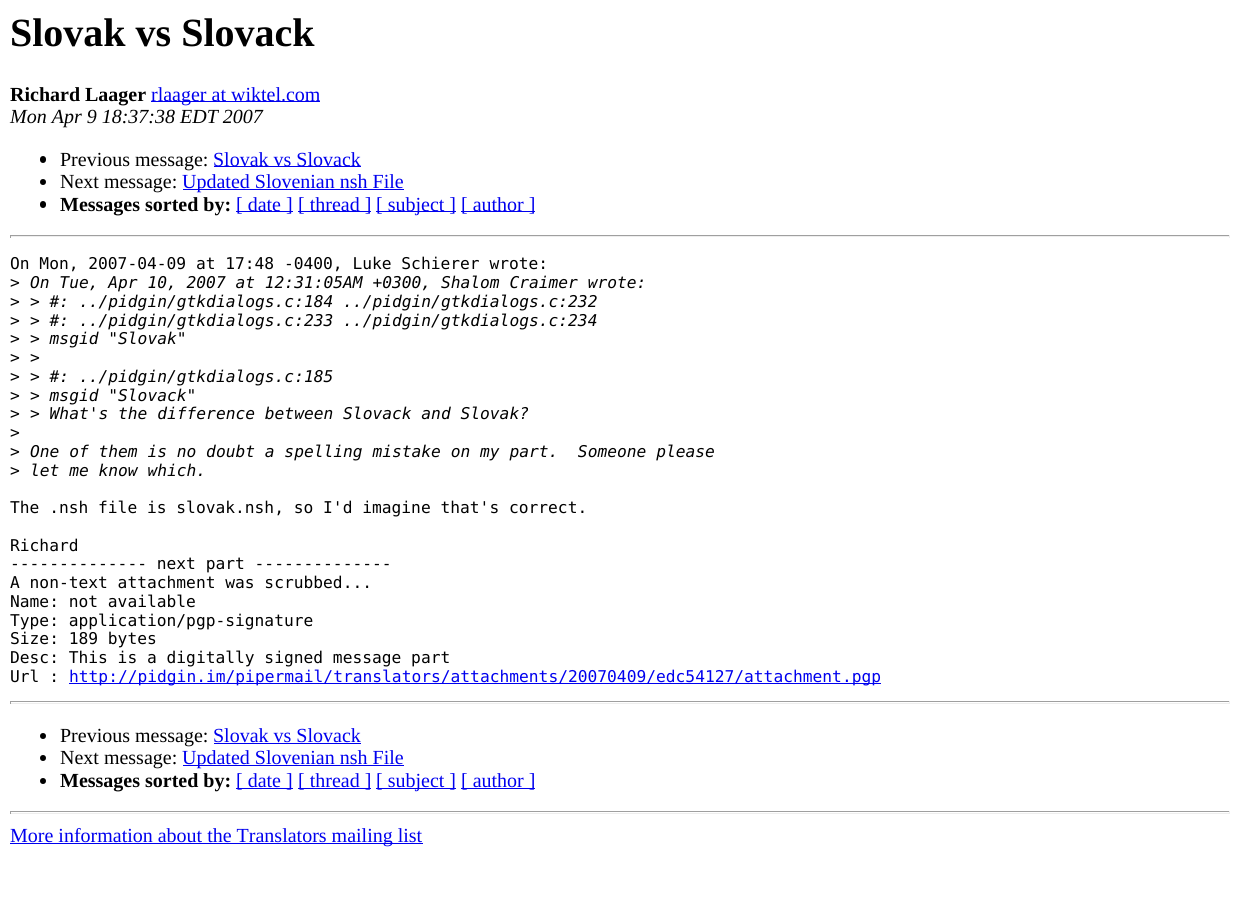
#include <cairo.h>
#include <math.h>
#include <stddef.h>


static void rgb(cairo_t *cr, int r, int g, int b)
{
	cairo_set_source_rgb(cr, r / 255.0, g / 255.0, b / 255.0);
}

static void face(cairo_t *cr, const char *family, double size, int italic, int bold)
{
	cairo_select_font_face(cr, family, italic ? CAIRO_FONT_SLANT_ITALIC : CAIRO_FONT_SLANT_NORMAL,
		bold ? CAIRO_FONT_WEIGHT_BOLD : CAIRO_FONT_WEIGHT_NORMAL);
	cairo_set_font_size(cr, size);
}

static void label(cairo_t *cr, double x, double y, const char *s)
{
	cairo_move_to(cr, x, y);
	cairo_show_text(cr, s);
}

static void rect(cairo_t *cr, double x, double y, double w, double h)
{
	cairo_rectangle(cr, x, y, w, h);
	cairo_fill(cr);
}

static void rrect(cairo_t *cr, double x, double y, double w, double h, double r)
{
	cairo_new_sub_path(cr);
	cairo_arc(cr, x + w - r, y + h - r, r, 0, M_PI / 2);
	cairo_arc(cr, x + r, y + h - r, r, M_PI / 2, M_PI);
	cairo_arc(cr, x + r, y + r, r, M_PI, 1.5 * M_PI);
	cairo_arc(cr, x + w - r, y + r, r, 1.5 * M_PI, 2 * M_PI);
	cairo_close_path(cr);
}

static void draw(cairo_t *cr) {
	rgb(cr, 255, 255, 255);
	cairo_paint(cr);
	face(cr, "Liberation Serif", 40, 0, 1);
	rgb(cr, 0, 0, 0);
	label(cr, 10, 46, "Slovak vs Slovack");
	face(cr, "Liberation Serif", 20, 0, 1);
	label(cr, 10, 101, "Richard Laager");
	rgb(cr, 0, 0, 238);
	rect(cr, 151, 101, 169, 1);
	face(cr, "Liberation Serif", 20, 0, 0);
	label(cr, 151, 101, "rlaager at wiktel.com");
	face(cr, "Liberation Serif", 20, 1, 0);
	rgb(cr, 0, 0, 0);
	label(cr, 10, 123, "Mon Apr 9 18:37:38 EDT 2007");
	rrect(cr, 40, 156, 6, 7, 3);
	cairo_fill(cr);
	face(cr, "Liberation Serif", 20, 0, 0);
	label(cr, 60, 166, "Previous message:");
	rgb(cr, 0, 0, 238);
	rect(cr, 214, 166, 147, 1);
	label(cr, 213, 166, "Slovak vs Slovack");
	rgb(cr, 0, 0, 0);
	cairo_new_path(cr);
	cairo_arc(cr, 43, 182, 3, 0, 2 * M_PI);
	cairo_fill(cr);
	label(cr, 60, 188, "Next message:");
	rgb(cr, 0, 0, 238);
	rect(cr, 183, 189, 221, 1);
	label(cr, 182, 188, "Updated Slovenian nsh File");
	rgb(cr, 0, 0, 0);
	rrect(cr, 40, 201, 6, 7, 3);
	cairo_fill(cr);
	face(cr, "Liberation Serif", 20, 0, 1);
	label(cr, 60, 211, "Messages sorted by:");
	rgb(cr, 0, 0, 238);
	rect(cr, 236, 211, 57, 1);
	face(cr, "Liberation Serif", 20, 0, 0);
	label(cr, 236, 211, "[ date ]");
	rect(cr, 298, 211, 73, 1);
	label(cr, 298, 211, "[ thread ]");
	rect(cr, 376, 211, 80, 1);
	label(cr, 376, 211, "[ subject ]");
	rect(cr, 461, 211, 74, 1);
	label(cr, 461, 211, "[ author ]");
	rgb(cr, 159, 159, 159);
	rect(cr, 10, 235, 1220, 1);
	rgb(cr, 238, 238, 238);
	rect(cr, 1229, 235, 1, 3);
	rect(cr, 10, 236, 1220, 1);
	rgb(cr, 159, 159, 159);
	rect(cr, 10, 235, 1, 3);
	face(cr, "DejaVu Sans Mono", 16.25, 0, 0);
	rgb(cr, 0, 0, 0);
	label(cr, 10, 269, "On Mon, 2007-04-09 at 17:48 -0400, Luke Schierer wrote:");
	label(cr, 10, 288, ">");
	face(cr, "DejaVu Sans Mono", 16.25, 1, 0);
	label(cr, 30, 288, "On Tue, Apr 10, 2007 at 12:31:05AM +0300, Shalom Craimer wrote:");
	face(cr, "DejaVu Sans Mono", 16.25, 0, 0);
	label(cr, 10, 307, ">");
	face(cr, "DejaVu Sans Mono", 16.25, 1, 0);
	label(cr, 30, 307, "> #: ../pidgin/gtkdialogs.c:184 ../pidgin/gtkdialogs.c:232");
	face(cr, "DejaVu Sans Mono", 16.25, 0, 0);
	label(cr, 10, 326, ">");
	face(cr, "DejaVu Sans Mono", 16.25, 1, 0);
	label(cr, 30, 326, "> #: ../pidgin/gtkdialogs.c:233 ../pidgin/gtkdialogs.c:234");
	face(cr, "DejaVu Sans Mono", 16.25, 0, 0);
	label(cr, 10, 344, ">");
	face(cr, "DejaVu Sans Mono", 16.25, 1, 0);
	label(cr, 30, 344, "> msgid \"Slovak\"");
	face(cr, "DejaVu Sans Mono", 16.25, 0, 0);
	label(cr, 10, 363, ">");
	face(cr, "DejaVu Sans Mono", 16.25, 1, 0);
	label(cr, 30, 363, ">");
	face(cr, "DejaVu Sans Mono", 16.25, 0, 0);
	label(cr, 10, 382, ">");
	face(cr, "DejaVu Sans Mono", 16.25, 1, 0);
	label(cr, 30, 382, "> #: ../pidgin/gtkdialogs.c:185");
	face(cr, "DejaVu Sans Mono", 16.25, 0, 0);
	label(cr, 10, 401, ">");
	face(cr, "DejaVu Sans Mono", 16.25, 1, 0);
	label(cr, 30, 401, "> msgid \"Slovack\"");
	face(cr, "DejaVu Sans Mono", 16.25, 0, 0);
	label(cr, 10, 419, ">");
	face(cr, "DejaVu Sans Mono", 16.25, 1, 0);
	label(cr, 30, 419, "> What's the difference between Slovack and Slovak?");
	face(cr, "DejaVu Sans Mono", 16.25, 0, 0);
	label(cr, 10, 438, ">");
	label(cr, 10, 457, ">");
	face(cr, "DejaVu Sans Mono", 16.25, 1, 0);
	label(cr, 30, 457, "One of them is no doubt a spelling mistake on my part.  Someone please");
	face(cr, "DejaVu Sans Mono", 16.25, 0, 0);
	label(cr, 10, 476, ">");
	face(cr, "DejaVu Sans Mono", 16.25, 1, 0);
	label(cr, 30, 476, "let me know which.");
	face(cr, "DejaVu Sans Mono", 16.25, 0, 0);
	label(cr, 10, 513, "The .nsh file is slovak.nsh, so I'd imagine that's correct.");
	label(cr, 10, 551, "Richard");
	label(cr, 10, 569, "-------------- next part --------------");
	label(cr, 10, 588, "A non-text attachment was scrubbed...");
	label(cr, 10, 607, "Name: not available");
	label(cr, 10, 626, "Type: application/pgp-signature");
	label(cr, 10, 644, "Size: 189 bytes");
	label(cr, 10, 663, "Desc: This is a digitally signed message part");
	label(cr, 10, 682, "Url :");
	rgb(cr, 0, 0, 238);
	rect(cr, 69, 683, 812, 1);
	label(cr, 69, 682, "http://pidgin.im/pipermail/translators/attachments/20070409/edc54127/attachment.pgp");
	rgb(cr, 159, 159, 159);
	rect(cr, 10, 701, 1220, 1);
	rgb(cr, 238, 238, 238);
	rect(cr, 1229, 701, 1, 3);
	rect(cr, 10, 703, 1220, 1);
	rgb(cr, 159, 159, 159);
	rect(cr, 10, 701, 1, 3);
	rgb(cr, 0, 0, 0);
	cairo_new_path(cr);
	cairo_arc(cr, 43, 736, 3, 0, 2 * M_PI);
	cairo_fill(cr);
	face(cr, "Liberation Serif", 20, 0, 0);
	label(cr, 60, 742, "Previous message:");
	rgb(cr, 0, 0, 238);
	label(cr, 213, 742, "Slovak vs Slovack");
	rect(cr, 214, 743, 147, 1);
	rgb(cr, 0, 0, 0);
	cairo_new_path(cr);
	cairo_arc(cr, 43, 758, 3, 0, 2 * M_PI);
	cairo_fill(cr);
	label(cr, 60, 764, "Next message:");
	rgb(cr, 0, 0, 238);
	rect(cr, 183, 765, 221, 1);
	label(cr, 182, 764, "Updated Slovenian nsh File");
	rgb(cr, 0, 0, 0);
	cairo_new_path(cr);
	cairo_arc(cr, 43, 781, 3, 0, 2 * M_PI);
	cairo_fill(cr);
	face(cr, "Liberation Serif", 20, 0, 1);
	label(cr, 60, 787, "Messages sorted by:");
	rgb(cr, 0, 0, 238);
	rect(cr, 236, 788, 57, 1);
	face(cr, "Liberation Serif", 20, 0, 0);
	label(cr, 236, 787, "[ date ]");
	rect(cr, 298, 788, 73, 1);
	label(cr, 298, 787, "[ thread ]");
	rect(cr, 376, 788, 80, 1);
	label(cr, 376, 787, "[ subject ]");
	rect(cr, 461, 788, 74, 1);
	label(cr, 461, 787, "[ author ]");
	rgb(cr, 159, 159, 159);
	rect(cr, 10, 811, 1220, 1);
	rgb(cr, 238, 238, 238);
	rect(cr, 1229, 811, 1, 3);
	rect(cr, 10, 813, 1220, 1);
	rgb(cr, 159, 159, 159);
	rect(cr, 10, 811, 1, 3);
	rgb(cr, 0, 0, 238);
	rect(cr, 10, 843, 413, 1);
	label(cr, 10, 842, "More information about the Translators mailing list");
}

int main(void) {
	cairo_surface_t *surface = cairo_image_surface_create(CAIRO_FORMAT_RGB24, 1239, 913);
	cairo_t *cr = cairo_create(surface);
	cairo_font_options_t *options = cairo_font_options_create();
	cairo_font_options_set_hint_metrics(options, CAIRO_HINT_METRICS_OFF);
	cairo_font_options_set_hint_style(options, CAIRO_HINT_STYLE_NONE);
	cairo_set_font_options(cr, options);
	cairo_set_miter_limit(cr, 4);
	draw(cr);
	cairo_surface_write_to_png(surface, "render.png");
	cairo_font_options_destroy(options);
	cairo_destroy(cr);
	cairo_surface_destroy(surface);
	return 0;
}
